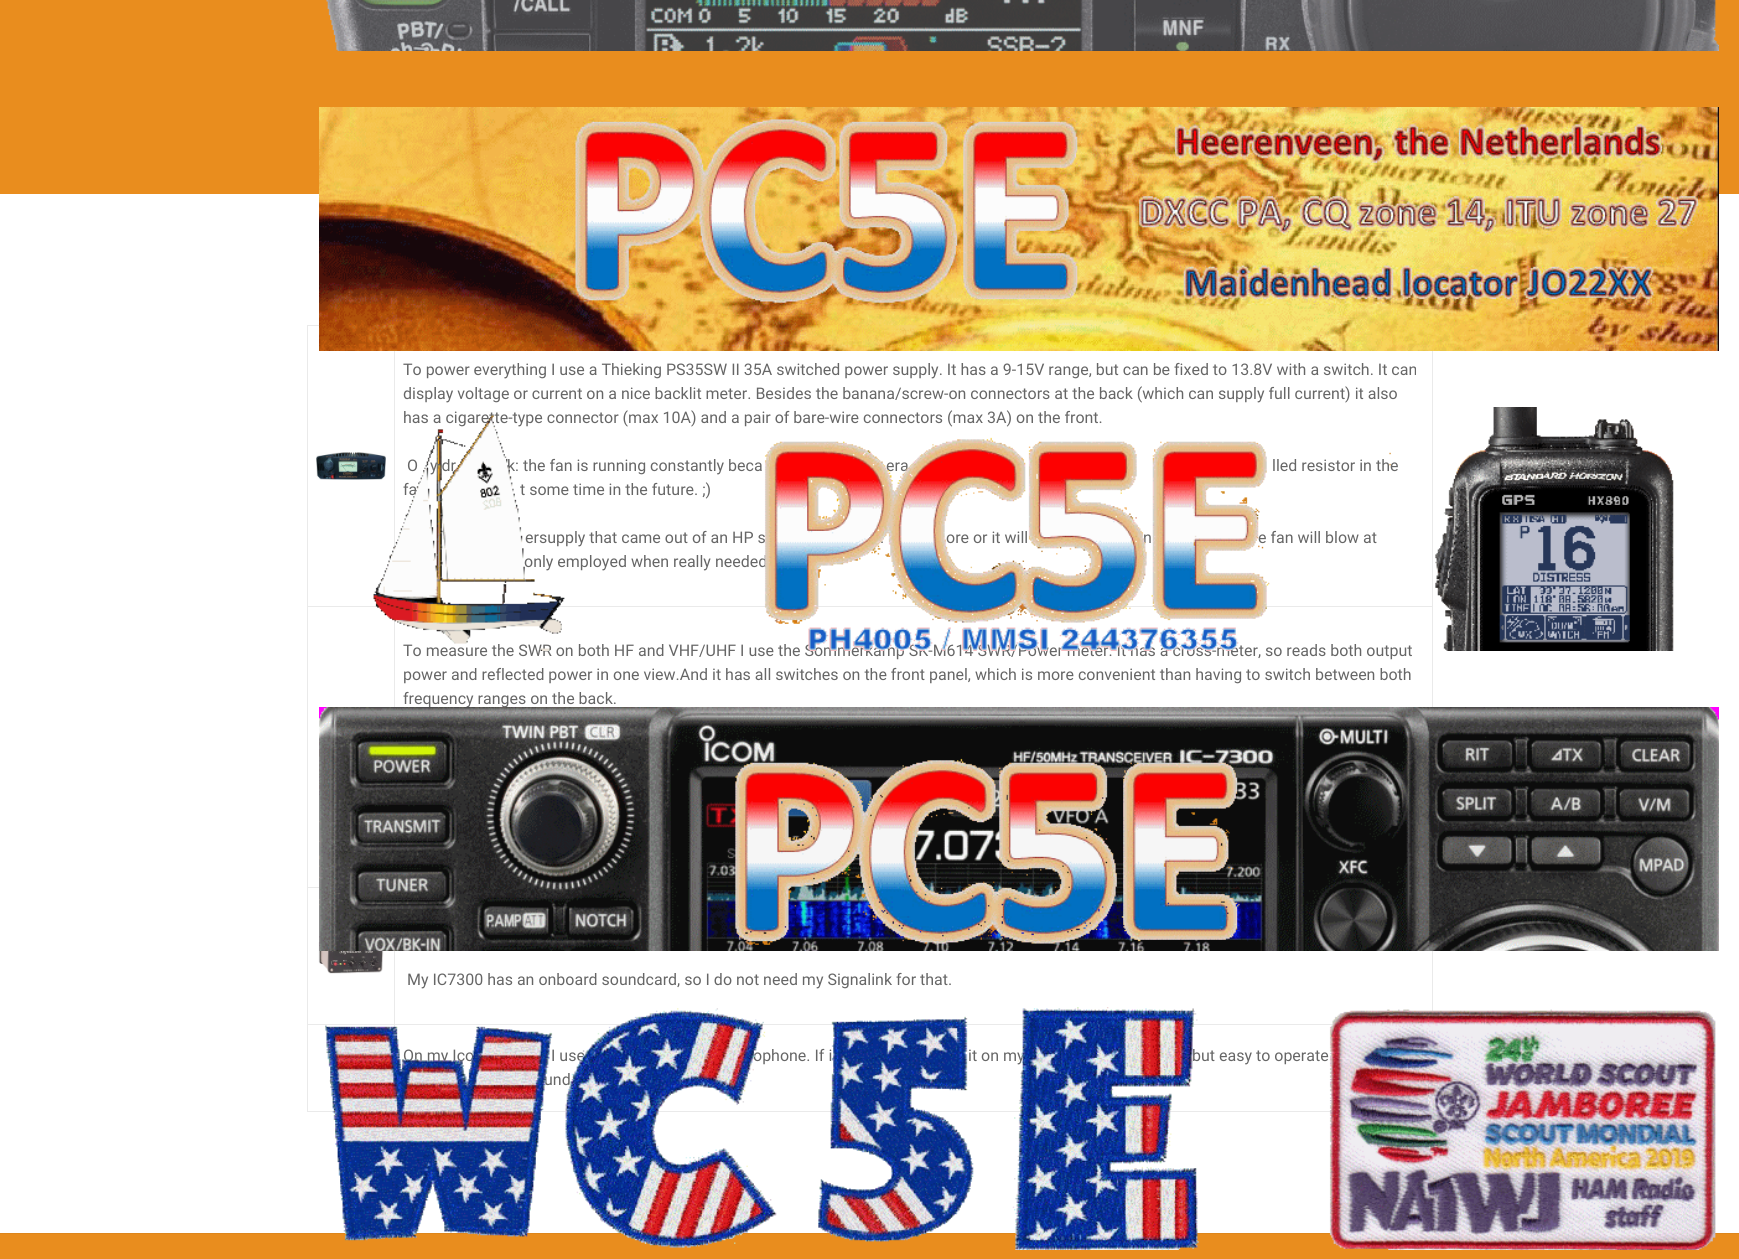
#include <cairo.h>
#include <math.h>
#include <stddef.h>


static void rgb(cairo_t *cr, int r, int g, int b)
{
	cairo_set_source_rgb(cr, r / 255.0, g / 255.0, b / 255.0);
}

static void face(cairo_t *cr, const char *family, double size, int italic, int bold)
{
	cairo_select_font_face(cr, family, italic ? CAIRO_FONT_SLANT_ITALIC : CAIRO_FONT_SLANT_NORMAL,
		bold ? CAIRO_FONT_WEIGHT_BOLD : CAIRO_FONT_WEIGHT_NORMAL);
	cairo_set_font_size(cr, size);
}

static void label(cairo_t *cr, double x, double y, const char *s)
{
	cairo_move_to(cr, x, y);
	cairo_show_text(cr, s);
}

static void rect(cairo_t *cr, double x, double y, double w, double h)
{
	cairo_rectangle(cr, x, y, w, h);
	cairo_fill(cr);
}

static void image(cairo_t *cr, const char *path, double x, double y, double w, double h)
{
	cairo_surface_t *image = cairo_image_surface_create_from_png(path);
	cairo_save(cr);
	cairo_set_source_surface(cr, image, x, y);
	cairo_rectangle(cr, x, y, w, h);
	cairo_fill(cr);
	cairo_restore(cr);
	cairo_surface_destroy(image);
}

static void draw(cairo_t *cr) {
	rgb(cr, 255, 255, 255);
	cairo_paint(cr);
	rgb(cr, 233, 141, 30);
	rect(cr, 0, 0, 1739, 194);
	image(cr, "image0.png", 326, 0, 1393, 51);
	image(cr, "image1.png", 319, 107, 1400, 244);
	rgb(cr, 234, 234, 234);
	rect(cr, 1432, 351, 1, 660);
	image(cr, "image5.png", 316, 452, 70, 28);
	rect(cr, 394, 351, 1, 197);
	face(cr, "Roboto", 16, 0, 0);
	rgb(cr, 102, 102, 102);
	label(cr, 403, 423, "has a cigarette-type connector (max 10A) and a pair of bare-wire connectors (max 3A) on the front.");
	label(cr, 407, 471, "O");
	label(cr, 430, 471, "y dr");
	label(cr, 507, 471, "k: the fan is running constantly beca");
	label(cr, 886, 471, "era");
	label(cr, 1272, 471, "lled resistor in the");
	label(cr, 403, 495, "fa");
	label(cr, 520, 495, "t some time in the future. ;)");
	label(cr, 525, 543, "ersupply that came out of an HP s");
	label(cr, 880, 543, ".");
	label(cr, 946, 543, "ore or it will");
	label(cr, 1143, 543, "n");
	label(cr, 1258, 543, "e fan will blow at");
	label(cr, 524, 567, "only employed when really needed");
	rgb(cr, 234, 234, 234);
	rect(cr, 307, 325, 12, 1);
	rect(cr, 307, 1111, 1024, 1);
	rect(cr, 307, 325, 1, 787);
	rect(cr, 307, 606, 71, 1);
	rect(cr, 558, 606, 875, 1);
	rect(cr, 394, 619, 1, 88);
	rgb(cr, 102, 102, 102);
	label(cr, 403, 656, "To measure the SWR on both HF and VHF/UHF I use the Sommerkamp SK-M614 SWR/Power meter. It has a cross-meter, so reads both output");
	image(cr, "image2.png", 373, 407, 1301, 244);
	label(cr, 403, 704, "frequency ranges on the back.");
	image(cr, "image6.png", 318, 942, 66, 32);
	image(cr, "image3.png", 319, 707, 1400, 244);
	rgb(cr, 234, 234, 234);
	rect(cr, 394, 1024, 939, 1);
	rect(cr, 394, 1024, 1, 3);
	rect(cr, 307, 1024, 88, 1);
	rect(cr, 394, 951, 1, 74);
	image(cr, "image7.png", 329, 1059, 4, 44);
	rgb(cr, 102, 102, 102);
	label(cr, 403, 1061, "On my Ico");
	label(cr, 551, 1061, "I use");
	label(cr, 753, 1061, "ophone. If i");
	label(cr, 968, 1061, "it on my");
	label(cr, 1192, 1061, "but easy to operate");
	label(cr, 544, 1085, "und");
	rgb(cr, 233, 141, 30);
	rect(cr, 0, 1234, 1739, 25);
	rgb(cr, 221, 134, 29);
	rect(cr, 0, 1233, 1739, 1);
	image(cr, "image4.png", 325, 1007, 1391, 243);
	rgb(cr, 102, 102, 102);
	label(cr, 403, 375, "To power everything I use a Thieking PS35SW II 35A switched power supply. It has a 9-15V range, but can be fixed to 13.8V with a switch. It can");
	label(cr, 403, 399, "display voltage or current on a nice backlit meter. Besides the banana/screw-on connectors at the back (which can supply full current) it also");
	label(cr, 403, 680, "power and reflected power in one view.And it has all switches on the front panel, which is more convenient than having to switch between both");
	rgb(cr, 234, 234, 234);
	rect(cr, 307, 887, 12, 1);
	rgb(cr, 102, 102, 102);
	label(cr, 407, 985, "My IC7300 has an onboard soundcard, so I do not need my Signalink for that.");
}

int main(void) {
	cairo_surface_t *surface = cairo_image_surface_create(CAIRO_FORMAT_RGB24, 1739, 1259);
	cairo_t *cr = cairo_create(surface);
	cairo_font_options_t *options = cairo_font_options_create();
	cairo_font_options_set_hint_metrics(options, CAIRO_HINT_METRICS_OFF);
	cairo_font_options_set_hint_style(options, CAIRO_HINT_STYLE_NONE);
	cairo_set_font_options(cr, options);
	cairo_set_miter_limit(cr, 4);
	draw(cr);
	cairo_surface_write_to_png(surface, "render.png");
	cairo_font_options_destroy(options);
	cairo_destroy(cr);
	cairo_surface_destroy(surface);
	return 0;
}
